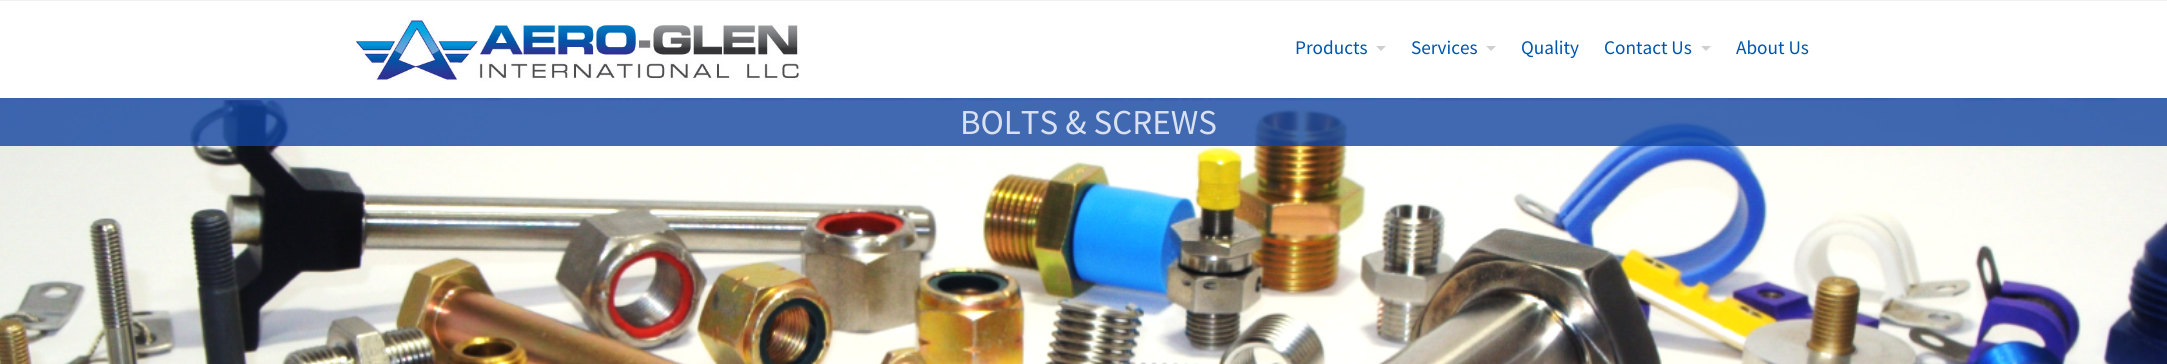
#include <cairo.h>
#include <math.h>
#include <stddef.h>


static void rgb(cairo_t *cr, int r, int g, int b)
{
	cairo_set_source_rgb(cr, r / 255.0, g / 255.0, b / 255.0);
}

static void face(cairo_t *cr, const char *family, double size, int italic, int bold)
{
	cairo_select_font_face(cr, family, italic ? CAIRO_FONT_SLANT_ITALIC : CAIRO_FONT_SLANT_NORMAL,
		bold ? CAIRO_FONT_WEIGHT_BOLD : CAIRO_FONT_WEIGHT_NORMAL);
	cairo_set_font_size(cr, size);
}

static void label(cairo_t *cr, double x, double y, const char *s)
{
	cairo_move_to(cr, x, y);
	cairo_show_text(cr, s);
}

static void rect(cairo_t *cr, double x, double y, double w, double h)
{
	cairo_rectangle(cr, x, y, w, h);
	cairo_fill(cr);
}

static void image(cairo_t *cr, const char *path, double x, double y, double w, double h)
{
	cairo_surface_t *image = cairo_image_surface_create_from_png(path);
	cairo_save(cr);
	cairo_set_source_surface(cr, image, x, y);
	cairo_rectangle(cr, x, y, w, h);
	cairo_fill(cr);
	cairo_restore(cr);
	cairo_surface_destroy(image);
}

static void draw(cairo_t *cr) {
	rgb(cr, 240, 240, 240);
	cairo_paint(cr);
	rgb(cr, 255, 255, 255);
	rect(cr, 0, 1, 2167, 97);
	rgb(cr, 221, 221, 221);
	rect(cr, 0, 98, 2167, 1);
	image(cr, "image0.png", 352, 19, 448, 62);
	face(cr, "Source Sans Pro", 19.25, 0, 0);
	rgb(cr, 0, 85, 171);
	label(cr, 1295, 54, "Products");
	rgb(cr, 207, 207, 207);
	cairo_new_path(cr);
	cairo_move_to(cr, 1376, 46);
	cairo_line_to(cr, 1386, 46);
	cairo_line_to(cr, 1381, 51);
	cairo_close_path(cr);
	cairo_fill(cr);
	rgb(cr, 0, 85, 171);
	label(cr, 1411, 54, "Services");
	rgb(cr, 207, 207, 207);
	cairo_new_path(cr);
	cairo_move_to(cr, 1486, 46);
	cairo_line_to(cr, 1496, 46);
	cairo_line_to(cr, 1491, 51);
	cairo_close_path(cr);
	cairo_fill(cr);
	rgb(cr, 0, 85, 171);
	label(cr, 1521, 54, "Quality");
	label(cr, 1604, 54, "Contact Us");
	rgb(cr, 207, 207, 207);
	cairo_new_path(cr);
	cairo_move_to(cr, 1701, 46);
	cairo_line_to(cr, 1711, 46);
	cairo_line_to(cr, 1706, 51);
	cairo_close_path(cr);
	cairo_fill(cr);
	rgb(cr, 0, 85, 171);
	label(cr, 1736, 54, "About Us");
	image(cr, "image1.png", 0, 98, 2167, 266);
	rgb(cr, 221, 221, 221);
	rect(cr, 0, 99, 2167, 1);
	cairo_set_source_rgba(cr, 0.067, 0.267, 0.627, 0.8);
	rect(cr, 0, 98, 2167, 48);
	face(cr, "Source Sans Pro", 35, 0, 0);
	rgb(cr, 217, 225, 240);
	label(cr, 960, 134, "BOLTS & SCREWS");
}

int main(void) {
	cairo_surface_t *surface = cairo_image_surface_create(CAIRO_FORMAT_RGB24, 2167, 364);
	cairo_t *cr = cairo_create(surface);
	cairo_font_options_t *options = cairo_font_options_create();
	cairo_font_options_set_hint_metrics(options, CAIRO_HINT_METRICS_OFF);
	cairo_font_options_set_hint_style(options, CAIRO_HINT_STYLE_NONE);
	cairo_set_font_options(cr, options);
	cairo_set_miter_limit(cr, 4);
	draw(cr);
	cairo_surface_write_to_png(surface, "render.png");
	cairo_font_options_destroy(options);
	cairo_destroy(cr);
	cairo_surface_destroy(surface);
	return 0;
}
